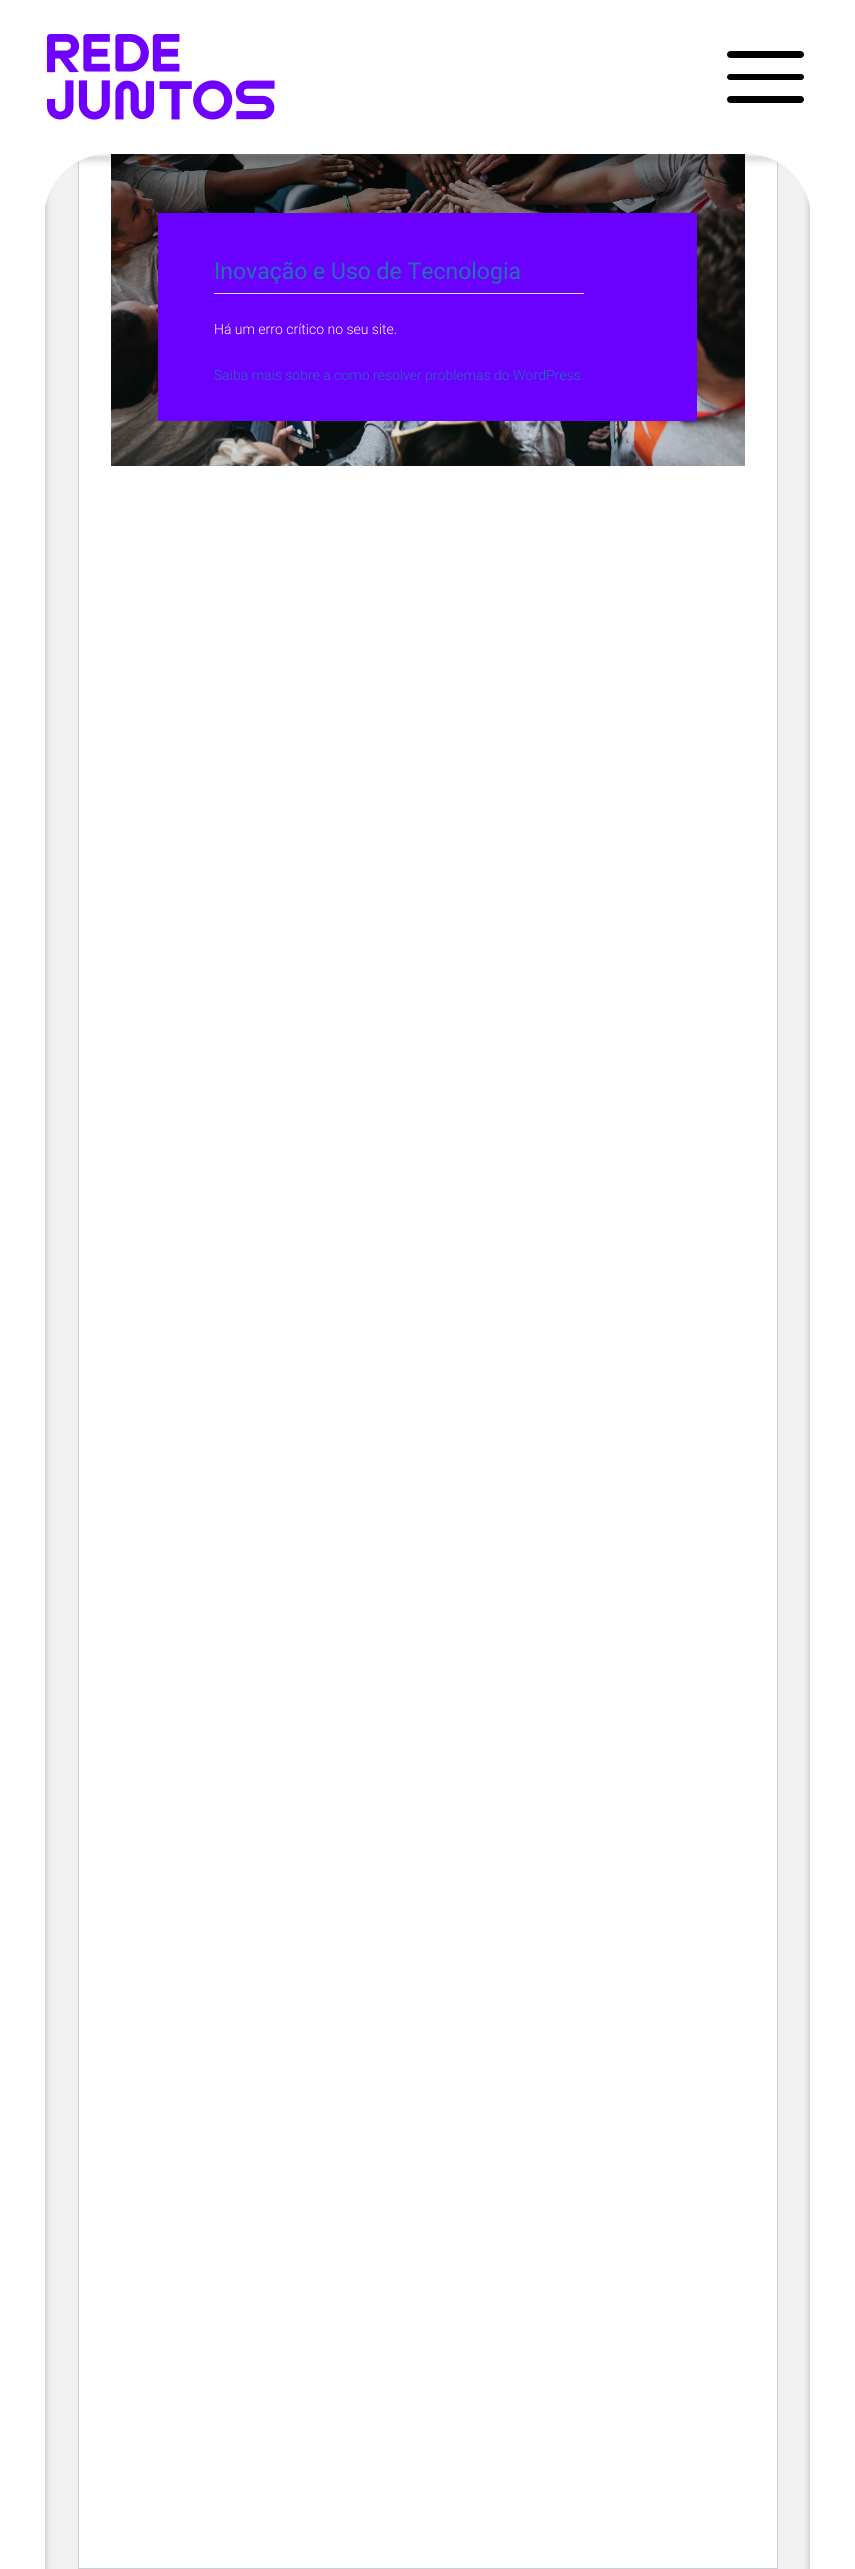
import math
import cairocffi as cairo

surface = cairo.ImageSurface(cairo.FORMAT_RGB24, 855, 2569)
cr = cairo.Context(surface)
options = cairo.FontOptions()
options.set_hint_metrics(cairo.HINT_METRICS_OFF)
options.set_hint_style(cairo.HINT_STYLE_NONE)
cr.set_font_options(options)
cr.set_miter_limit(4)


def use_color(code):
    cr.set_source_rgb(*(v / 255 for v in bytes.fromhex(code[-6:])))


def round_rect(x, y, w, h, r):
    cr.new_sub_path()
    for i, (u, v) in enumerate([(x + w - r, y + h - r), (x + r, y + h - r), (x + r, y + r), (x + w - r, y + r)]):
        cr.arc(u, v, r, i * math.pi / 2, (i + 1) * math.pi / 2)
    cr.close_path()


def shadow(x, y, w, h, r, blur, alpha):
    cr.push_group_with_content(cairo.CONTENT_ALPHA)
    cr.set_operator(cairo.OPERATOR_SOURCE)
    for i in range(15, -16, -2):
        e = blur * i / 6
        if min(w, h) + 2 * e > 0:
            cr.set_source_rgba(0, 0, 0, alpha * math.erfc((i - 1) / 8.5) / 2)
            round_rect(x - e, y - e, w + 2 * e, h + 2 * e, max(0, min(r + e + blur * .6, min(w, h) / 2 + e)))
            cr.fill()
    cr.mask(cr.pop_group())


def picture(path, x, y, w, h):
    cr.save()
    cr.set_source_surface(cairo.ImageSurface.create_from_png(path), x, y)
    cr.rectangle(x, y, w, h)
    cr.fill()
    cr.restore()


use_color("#f1f1f1")
cr.paint()
use_color("#ffffff")
cr.rectangle(79, 154, 698, 2414)
cr.fill()
cr.rectangle(78.5, 0.5, 699, 2568)
use_color("#ccd0d4")
cr.set_line_width(1)
cr.stroke()
use_color("#000000")
shadow(1, -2, 45, 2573, 0, 3, 0.2)
picture("img2.png", 111, 154, 634, 312)
shadow(42, 156, 769, 4, 0, 4, 0.2)
shadow(809, -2, 45, 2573, 0, 3, 0.2)
use_color("#ffffff")
cr.rectangle(45, 0, 765, 154)
cr.fill()
cr.new_path()
cr.move_to(108, 154)
cr.line_to(44, 154)
cr.line_to(44, 218)
cr.curve_to(44, 183, 73, 154, 108, 154)
cr.close_path()
cr.fill()
cr.rectangle(0, 0, 45, 2569)
cr.fill()
picture("img1.png", 47, 34, 228, 86)
use_color("#000000")
round_rect(727, 51, 77, 7, 3.5)
cr.fill()
round_rect(727, 74, 77, 6, 3)
cr.fill()
round_rect(727, 96, 77, 7, 3.5)
cr.fill()
use_color("#ffffff")
cr.new_path()
cr.move_to(747, 154)
cr.line_to(811, 154)
cr.line_to(811, 218)
cr.curve_to(811, 183, 782, 154, 747, 154)
cr.close_path()
cr.fill()
cr.rectangle(810, 0, 45, 2569)
cr.fill()
use_color("#6a00ff")
cr.rectangle(158, 213, 539, 208)
cr.fill()
use_color("#dadada")
cr.rectangle(214, 293, 370, 1)
cr.fill()
cr.select_font_face("Roboto")
cr.set_font_size(23)
use_color("#2271b1")
cr.move_to(214, 279)
cr.show_text("Inovação e Uso de Tecnologia")
cr.select_font_face("Roboto Light")
cr.set_font_size(14)
use_color("#ffffff")
cr.move_to(214, 334)
cr.show_text("Há um erro crítico no seu site.")
use_color("#2271b1")
cr.move_to(214, 380)
cr.show_text("Saiba mais sobre a como resolver problemas do WordPress.")
surface.write_to_png("result.png")
